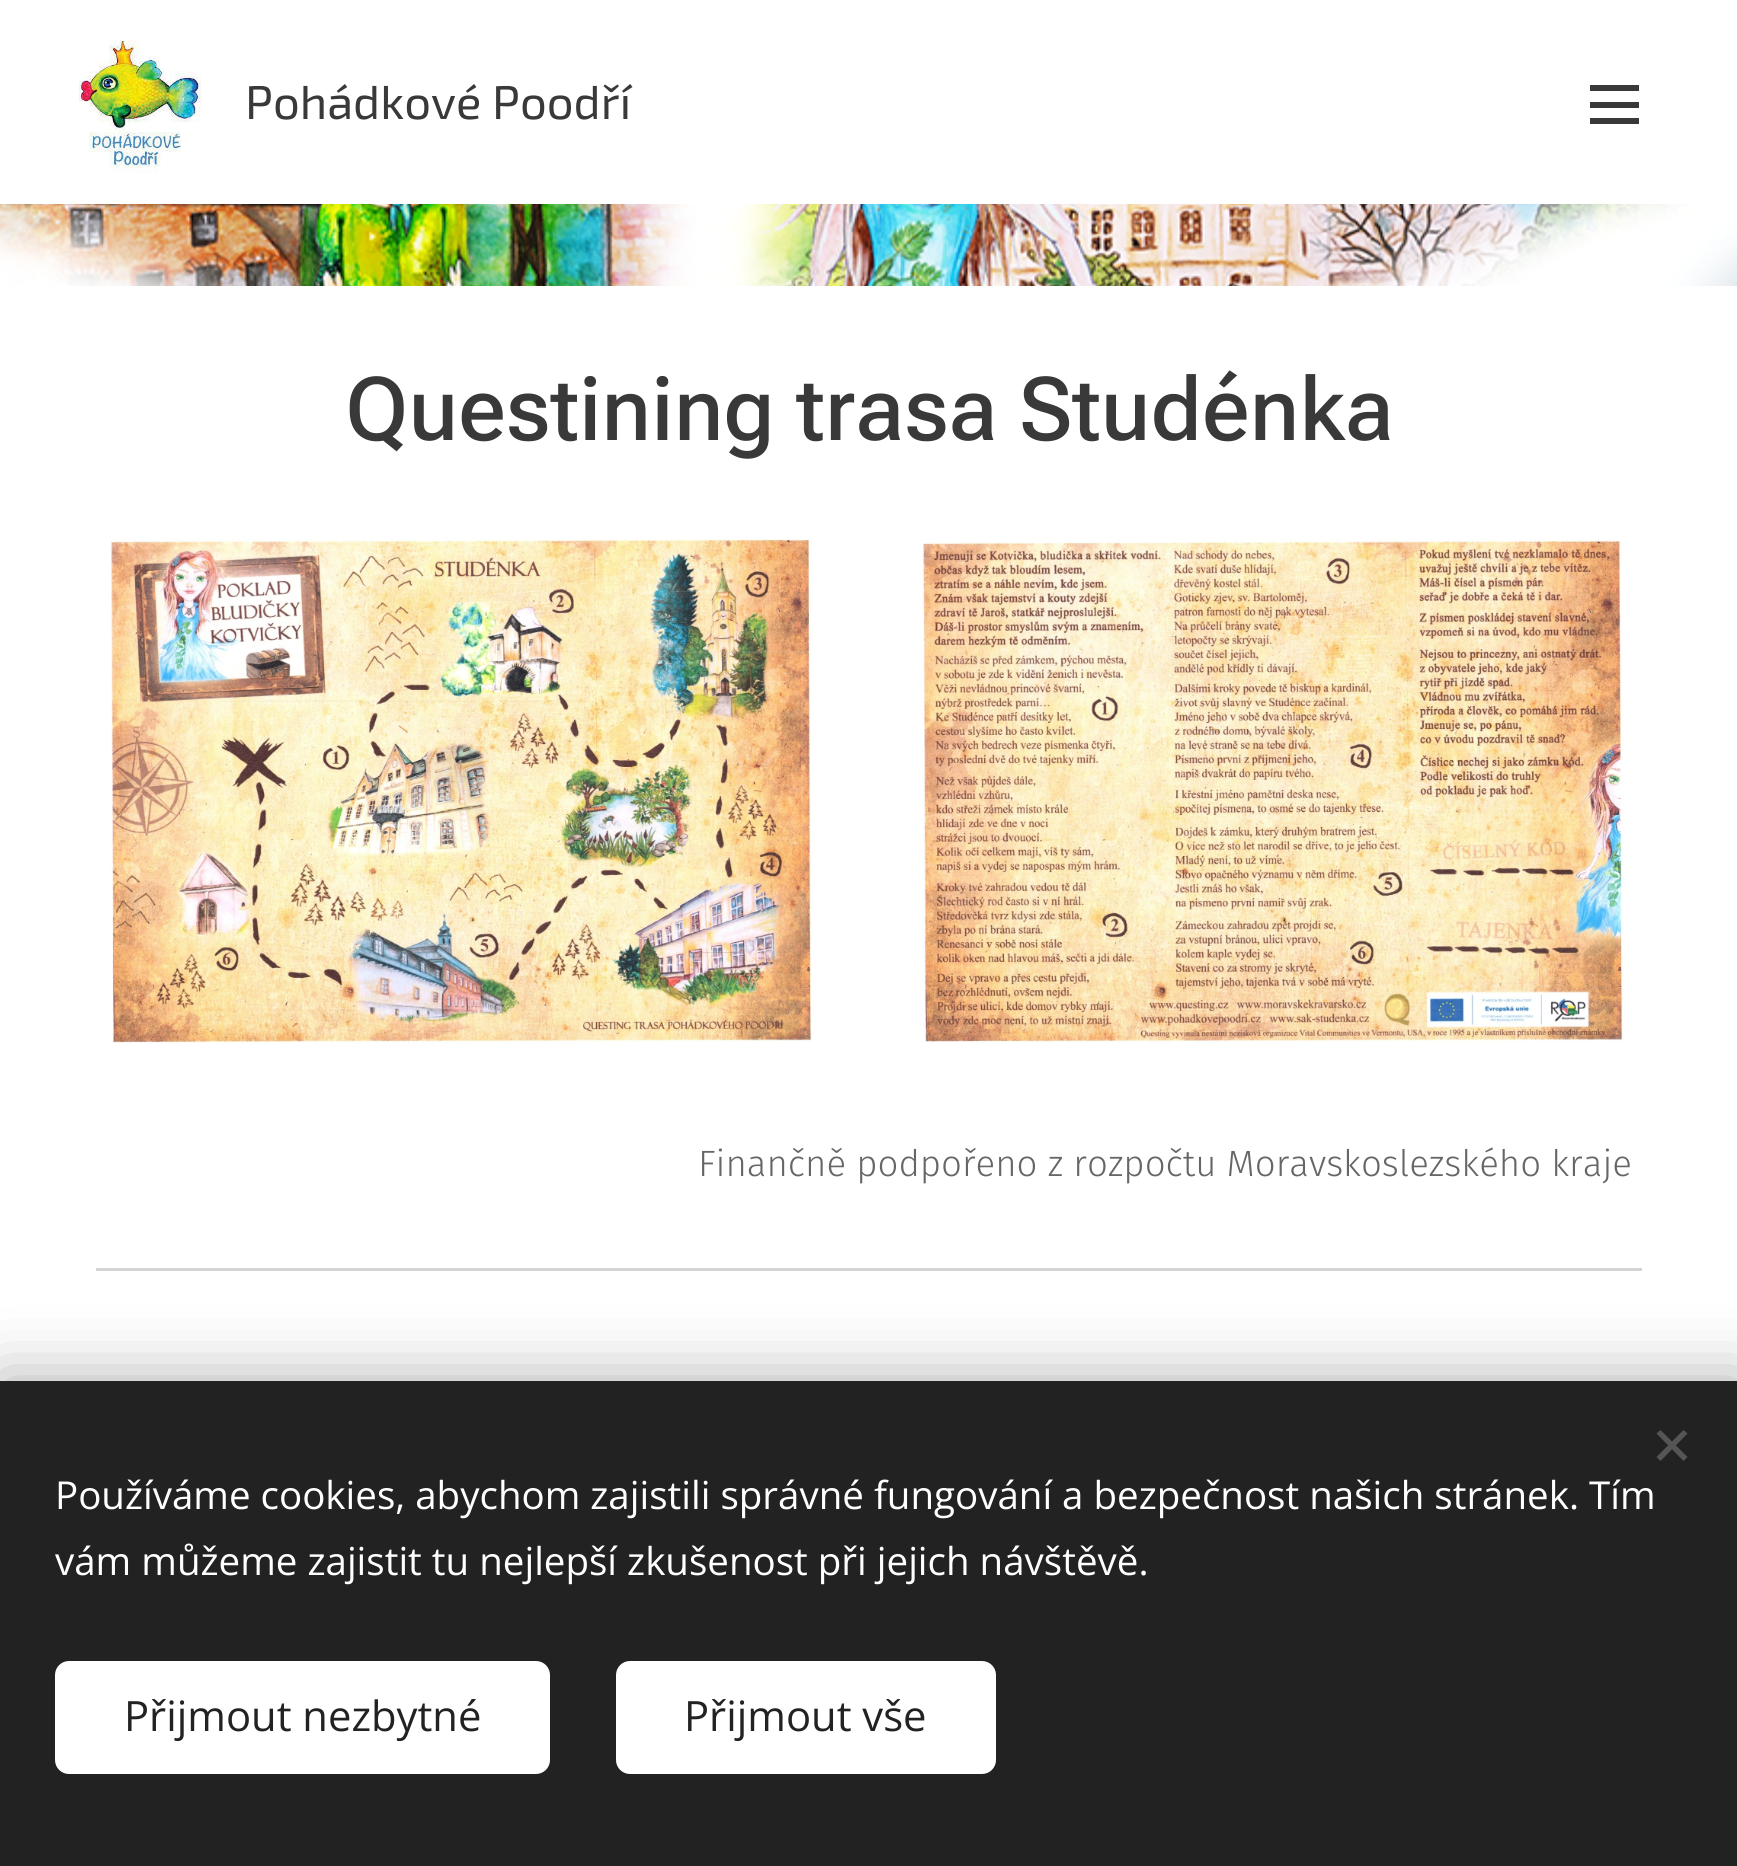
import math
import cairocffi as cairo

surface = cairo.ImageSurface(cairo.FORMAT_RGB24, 1737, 1866)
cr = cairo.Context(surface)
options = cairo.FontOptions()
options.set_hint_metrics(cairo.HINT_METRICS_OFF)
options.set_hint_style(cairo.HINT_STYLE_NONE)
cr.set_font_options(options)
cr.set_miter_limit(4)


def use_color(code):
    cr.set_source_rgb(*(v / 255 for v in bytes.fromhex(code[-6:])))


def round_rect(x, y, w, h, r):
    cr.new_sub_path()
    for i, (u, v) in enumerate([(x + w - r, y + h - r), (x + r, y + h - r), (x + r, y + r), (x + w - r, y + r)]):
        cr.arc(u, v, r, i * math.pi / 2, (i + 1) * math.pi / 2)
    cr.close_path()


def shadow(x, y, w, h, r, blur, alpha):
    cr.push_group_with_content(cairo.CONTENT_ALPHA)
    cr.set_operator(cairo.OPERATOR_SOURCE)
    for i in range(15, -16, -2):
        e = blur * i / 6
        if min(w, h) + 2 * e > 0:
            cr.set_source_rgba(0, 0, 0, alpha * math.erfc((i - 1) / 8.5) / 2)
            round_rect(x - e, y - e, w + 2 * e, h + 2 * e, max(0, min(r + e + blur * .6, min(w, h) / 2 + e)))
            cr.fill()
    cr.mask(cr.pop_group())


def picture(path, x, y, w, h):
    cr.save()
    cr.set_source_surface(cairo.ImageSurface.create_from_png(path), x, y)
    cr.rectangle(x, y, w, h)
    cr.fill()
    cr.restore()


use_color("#ffffff")
cr.paint()
picture("img1.png", 78, 40, 124, 133)
cr.select_font_face("Exo 2")
cr.set_font_size(47.25)
use_color("#393939")
cr.move_to(245, 119)
cr.show_text("Pohádkové Poodří")
cr.rectangle(1590, 102, 49, 6)
cr.fill()
cr.rectangle(1590, 85, 49, 6)
cr.fill()
cr.rectangle(1590, 118, 49, 6)
cr.fill()
picture("img2.png", 0, 204, 1737, 82)
cr.select_font_face("Roboto Flex Medium")
cr.set_font_size(88)
cr.move_to(345, 440)
cr.show_text("Questining trasa Studénka")
picture("img3.png", 110, 539, 702, 505)
picture("img4.png", 922, 539, 702, 504)
cr.select_font_face("Fira Sans Light")
cr.set_font_size(36.6)
use_color("#666666")
cr.move_to(698, 1176)
cr.show_text("Finančně podpořeno z rozpočtu Moravskoslezského kraje")
use_color("#d4d4d4")
cr.rectangle(96, 1268, 1546, 3)
cr.fill()
use_color("#000000")
shadow(0, 1381, 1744, 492, 0, 34.5, 0.33)
use_color("#222222")
cr.rectangle(0, 1381, 1737, 485)
cr.fill()
use_color("#555555")
cr.new_path()
cr.move_to(1656.5, 1457)
cr.line_to(1683.5, 1430)
cr.line_to(1687.5, 1433.5)
cr.line_to(1660.5, 1461)
cr.close_path()
cr.fill()
cr.new_path()
cr.move_to(1660.5, 1430)
cr.line_to(1687.5, 1457)
cr.line_to(1683.5, 1461)
cr.line_to(1656.5, 1433.5)
cr.close_path()
cr.fill()
cr.select_font_face("Open Sans")
cr.set_font_size(38.5)
use_color("#ffffff")
cr.move_to(55, 1509)
cr.show_text("Používáme cookies, abychom zajistili správné fungování a bezpečnost našich stránek. Tím")
cr.move_to(55, 1575)
cr.show_text("vám můžeme zajistit tu nejlepší zkušenost při jejich návštěvě.")
round_rect(55, 1661, 495, 113, 14)
cr.fill()
cr.set_font_size(41.75)
use_color("#222222")
cr.move_to(124, 1731)
cr.show_text("Přijmout nezbytné")
use_color("#ffffff")
round_rect(616, 1661, 380, 113, 14)
cr.fill()
use_color("#222222")
cr.move_to(684, 1731)
cr.show_text("Přijmout vše")
surface.write_to_png("result.png")
